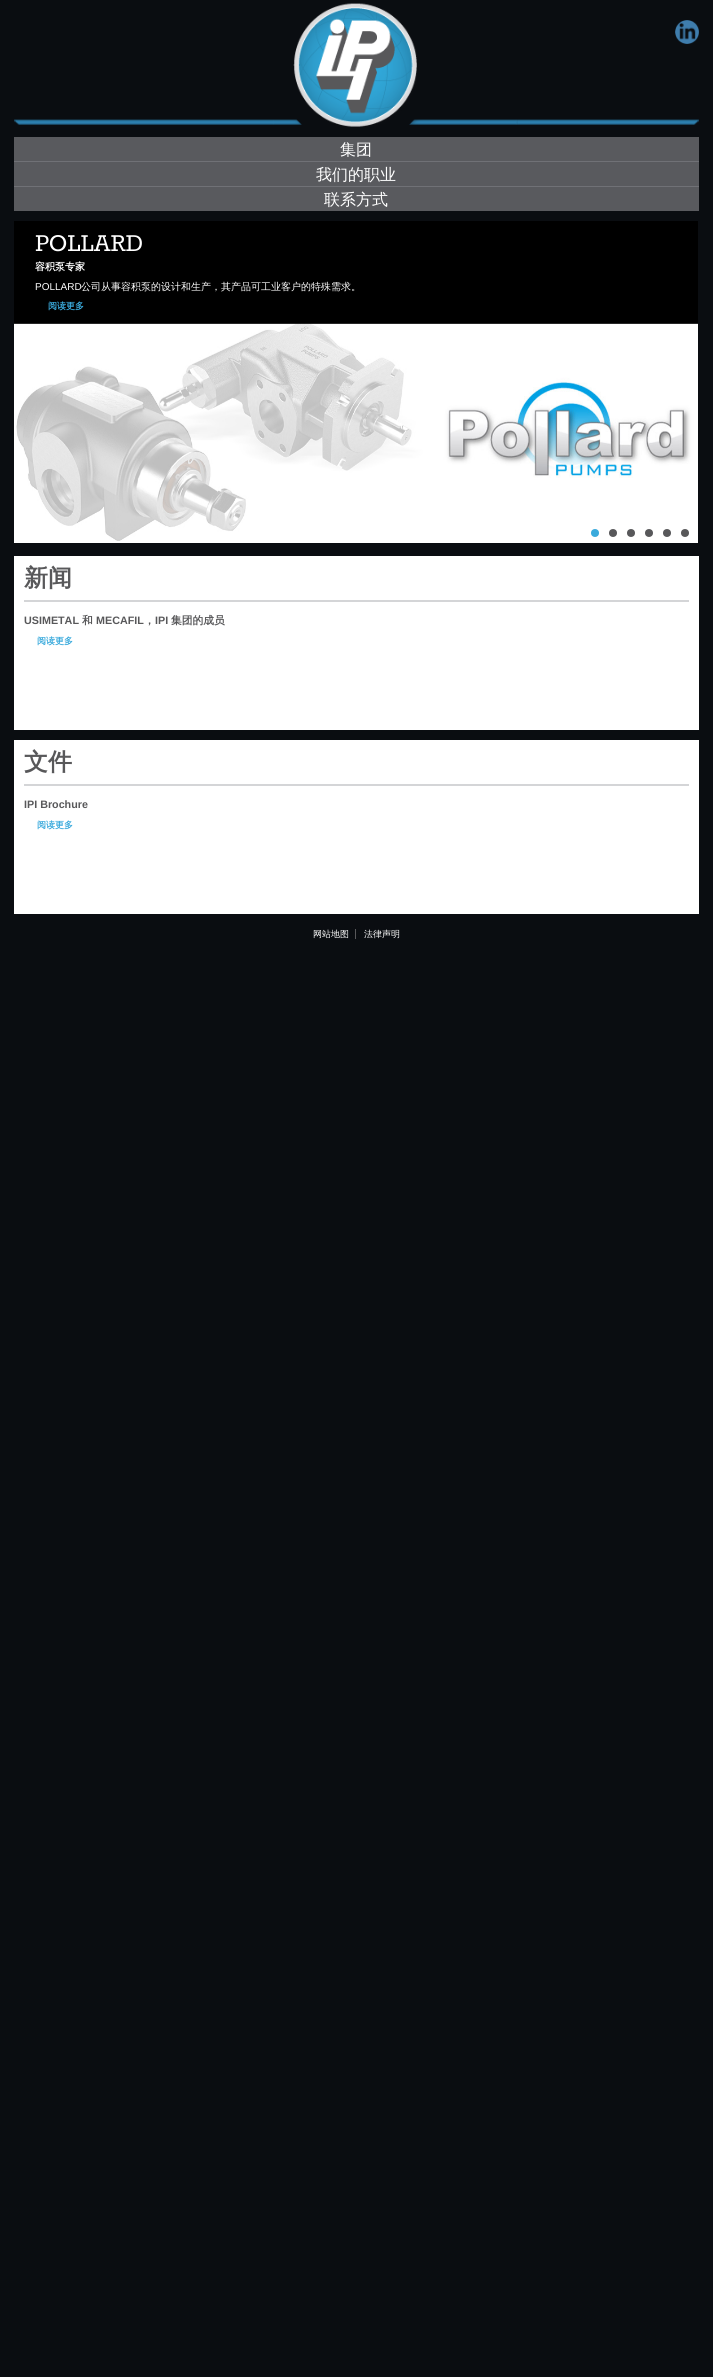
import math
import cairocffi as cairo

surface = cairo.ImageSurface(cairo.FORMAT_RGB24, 713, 2377)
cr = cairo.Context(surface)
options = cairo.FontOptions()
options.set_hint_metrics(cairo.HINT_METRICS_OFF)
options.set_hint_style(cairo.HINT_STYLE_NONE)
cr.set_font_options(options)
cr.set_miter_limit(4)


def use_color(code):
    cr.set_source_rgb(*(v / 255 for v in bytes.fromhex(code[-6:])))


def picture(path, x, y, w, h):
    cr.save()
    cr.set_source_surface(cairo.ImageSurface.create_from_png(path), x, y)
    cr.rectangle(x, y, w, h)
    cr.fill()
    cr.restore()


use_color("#0a0d11")
cr.paint()
picture("img1.png", 14, 3, 685, 124)
picture("img2.png", 675, 20, 24, 24)
use_color("#595a5e")
cr.rectangle(14, 137, 685, 74)
cr.fill()
use_color("#707176")
cr.rectangle(14, 161, 685, 1)
cr.fill()
cr.select_font_face("WenQuanYi Zen Hei Medium")
cr.set_font_size(16)
use_color("#ffffff")
cr.move_to(340, 155)
cr.show_text("集团")
use_color("#707176")
cr.rectangle(14, 186, 685, 1)
cr.fill()
use_color("#ffffff")
cr.move_to(316, 180)
cr.show_text("我们的职业")
cr.move_to(324, 205)
cr.show_text("联系方式")
cr.rectangle(14, 476, 684, 67)
cr.fill()
use_color("#000000")
cr.rectangle(14, 221, 684, 103)
cr.fill()
cr.select_font_face("Rokkitt")
cr.set_font_size(28)
use_color("#ffffff")
cr.move_to(35, 251)
cr.show_text("POLLARD")
cr.select_font_face("WenQuanYi Zen Hei", cairo.FONT_SLANT_NORMAL, cairo.FONT_WEIGHT_BOLD)
cr.set_font_size(10)
cr.move_to(35, 270)
cr.show_text("容积泵专家")
cr.select_font_face("Liberation Sans")
cr.move_to(35, 290)
cr.show_text("POLLARD")
cr.select_font_face("WenQuanYi Zen Hei Medium")
cr.move_to(81, 290)
cr.show_text("公司从事容积泵的设计和生产，其产品可工业客户的特殊需求。")
cr.select_font_face("WenQuanYi Zen Hei", cairo.FONT_SLANT_NORMAL, cairo.FONT_WEIGHT_BOLD)
cr.set_font_size(9)
use_color("#3aaadc")
cr.move_to(48, 309)
cr.show_text("阅读更多")
picture("img3.png", 14, 323, 684, 218)
picture("img4.png", 14, 323, 684, 153)
cr.arc(595, 533, 4, 0, 2 * math.pi)
cr.fill()
use_color("#58585a")
cr.arc(613, 533, 4, 0, 2 * math.pi)
cr.fill()
cr.arc(631, 533, 4, 0, 2 * math.pi)
cr.fill()
cr.arc(649, 533, 4, 0, 2 * math.pi)
cr.fill()
cr.arc(667, 533, 4, 0, 2 * math.pi)
cr.fill()
cr.arc(685, 533, 4, 0, 2 * math.pi)
cr.fill()
use_color("#ffffff")
cr.rectangle(14, 556, 685, 174)
cr.fill()
use_color("#d4d5d7")
cr.rectangle(24, 600, 665, 2)
cr.fill()
cr.set_font_size(24)
use_color("#58585a")
cr.move_to(24, 586)
cr.show_text("新闻")
cr.select_font_face("Liberation Sans", cairo.FONT_SLANT_NORMAL, cairo.FONT_WEIGHT_BOLD)
cr.set_font_size(10.75)
cr.move_to(24, 624)
cr.show_text("USIMETAL")
cr.select_font_face("WenQuanYi Zen Hei", cairo.FONT_SLANT_NORMAL, cairo.FONT_WEIGHT_BOLD)
cr.move_to(82, 624)
cr.show_text("和")
cr.select_font_face("Liberation Sans", cairo.FONT_SLANT_NORMAL, cairo.FONT_WEIGHT_BOLD)
cr.move_to(96, 624)
cr.show_text("MECAFIL")
cr.select_font_face("WenQuanYi Zen Hei", cairo.FONT_SLANT_NORMAL, cairo.FONT_WEIGHT_BOLD)
cr.move_to(144, 624)
cr.show_text("，")
cr.select_font_face("Liberation Sans", cairo.FONT_SLANT_NORMAL, cairo.FONT_WEIGHT_BOLD)
cr.move_to(155, 624)
cr.show_text("IPI")
cr.select_font_face("WenQuanYi Zen Hei", cairo.FONT_SLANT_NORMAL, cairo.FONT_WEIGHT_BOLD)
cr.move_to(171, 624)
cr.show_text("集团的成员")
cr.set_font_size(9)
use_color("#3aaadc")
cr.move_to(37, 644)
cr.show_text("阅读更多")
use_color("#ffffff")
cr.rectangle(14, 740, 685, 174)
cr.fill()
use_color("#d4d5d7")
cr.rectangle(24, 784, 665, 2)
cr.fill()
cr.set_font_size(24)
use_color("#58585a")
cr.move_to(24, 770)
cr.show_text("文件")
cr.select_font_face("Liberation Sans", cairo.FONT_SLANT_NORMAL, cairo.FONT_WEIGHT_BOLD)
cr.set_font_size(10.75)
cr.move_to(24, 808)
cr.show_text("IPI Brochure")
cr.select_font_face("WenQuanYi Zen Hei", cairo.FONT_SLANT_NORMAL, cairo.FONT_WEIGHT_BOLD)
cr.set_font_size(9)
use_color("#3aaadc")
cr.move_to(37, 828)
cr.show_text("阅读更多")
cr.select_font_face("WenQuanYi Zen Hei Medium")
use_color("#ffffff")
cr.move_to(313, 937)
cr.show_text("网站地图")
use_color("#58585a")
cr.rectangle(355, 929, 1, 10)
cr.fill()
use_color("#ffffff")
cr.move_to(364, 937)
cr.show_text("法律声明")
surface.write_to_png("result.png")
